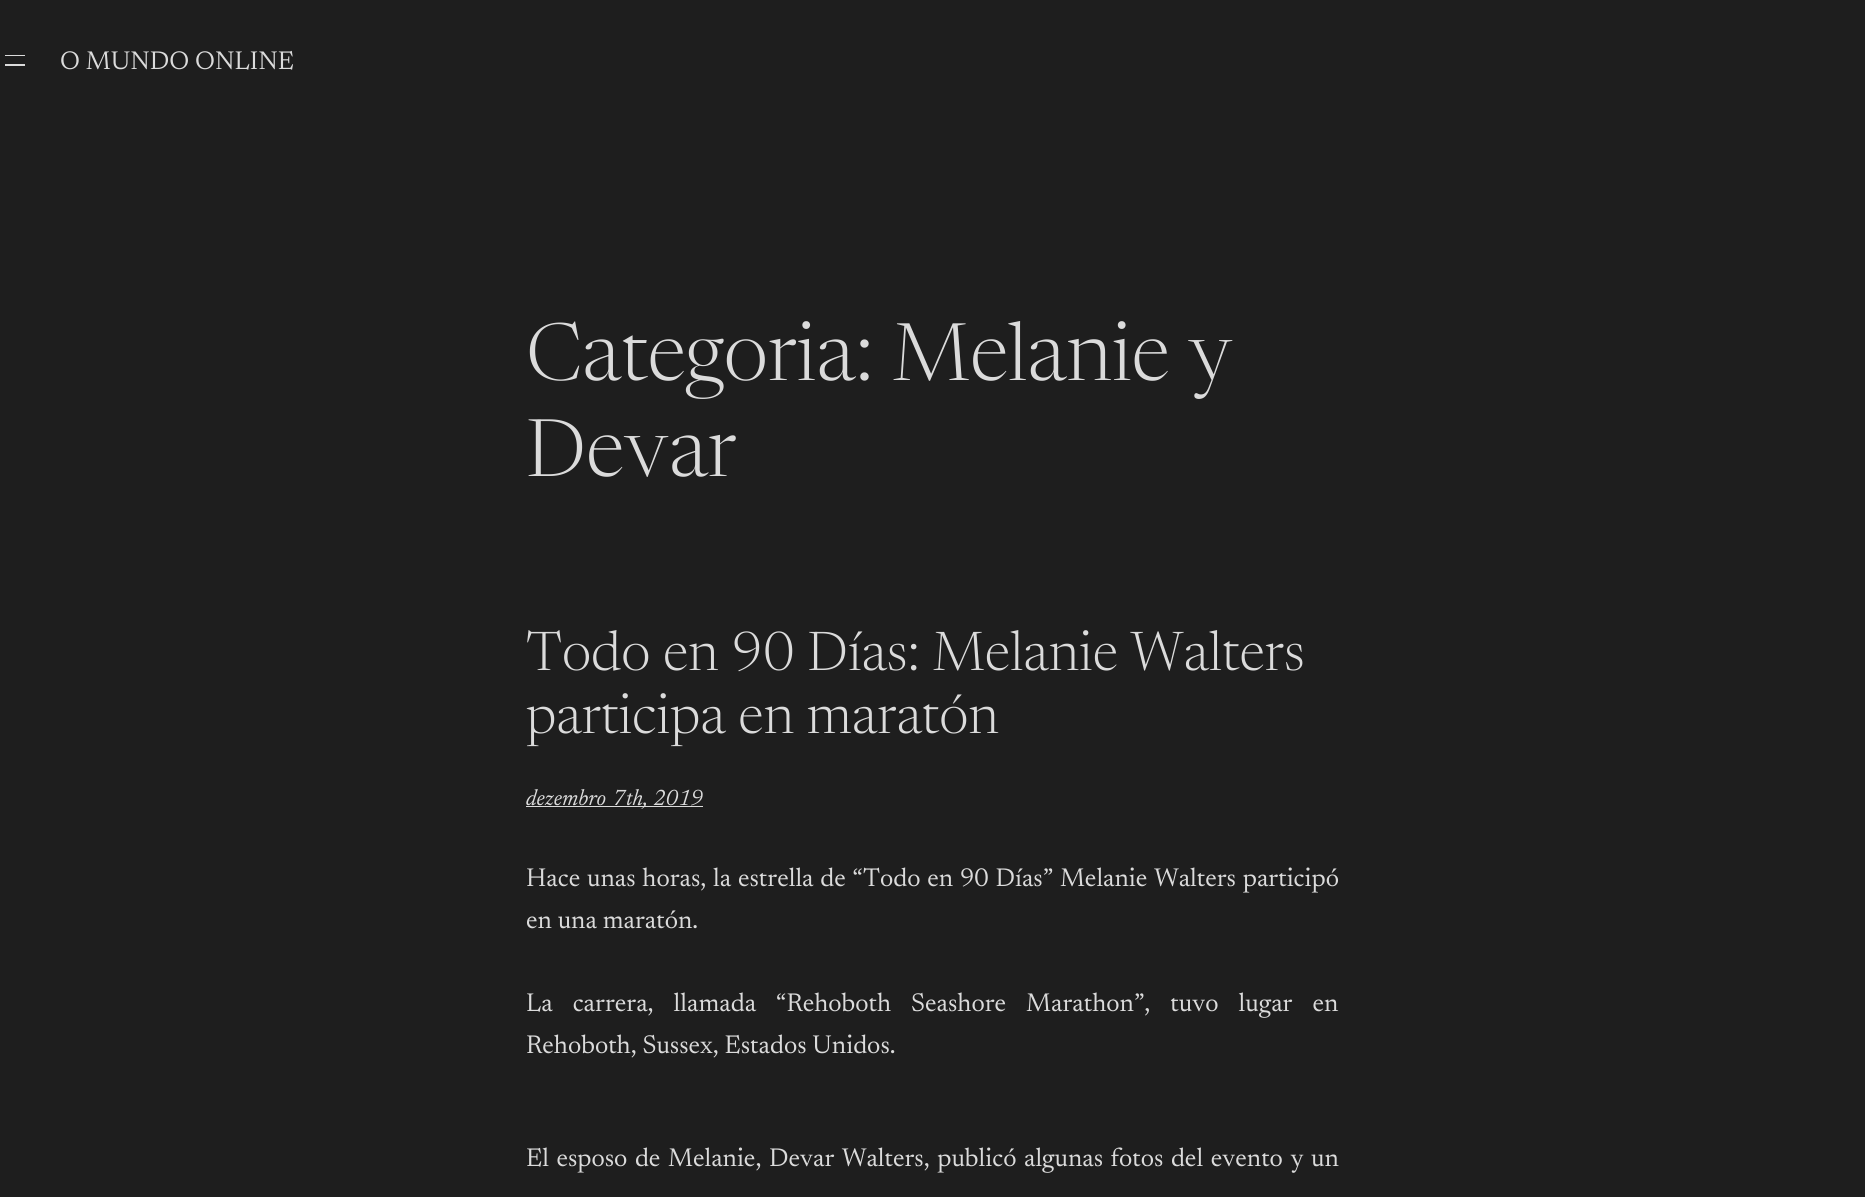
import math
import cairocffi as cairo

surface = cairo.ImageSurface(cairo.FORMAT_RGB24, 1865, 1197)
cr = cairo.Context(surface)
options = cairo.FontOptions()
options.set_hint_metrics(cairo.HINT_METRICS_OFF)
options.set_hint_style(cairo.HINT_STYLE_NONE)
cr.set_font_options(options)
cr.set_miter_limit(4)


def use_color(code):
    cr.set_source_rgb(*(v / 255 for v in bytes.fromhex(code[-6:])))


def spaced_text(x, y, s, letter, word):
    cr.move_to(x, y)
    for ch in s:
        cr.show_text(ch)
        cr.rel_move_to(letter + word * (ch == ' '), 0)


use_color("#1e1e1e")
cr.paint()
use_color("#dbdbdb")
cr.rectangle(5, 55, 20, 1)
cr.fill()
cr.rectangle(5, 64, 20, 2)
cr.fill()
cr.select_font_face("Newsreader")
cr.set_font_size(26)
cr.move_to(60, 69)
cr.show_text("O MUNDO ONLINE")
cr.select_font_face("Newsreader Light")
cr.set_font_size(80)
cr.move_to(526, 380)
cr.show_text("Categoria: Melanie y")
cr.move_to(526, 476)
cr.show_text("Devar")
cr.select_font_face("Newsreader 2 Light")
cr.set_font_size(55)
cr.move_to(526, 670)
cr.show_text("Todo en 90 Días: Melanie Walters")
cr.move_to(526, 733)
cr.show_text("participa en maratón")
cr.rectangle(526, 806, 177, 1)
cr.fill()
cr.select_font_face("Newsreader", cairo.FONT_SLANT_ITALIC)
cr.set_font_size(22.5)
cr.move_to(526, 805)
cr.show_text("dezembro 7th, 2019")
cr.select_font_face("Newsreader")
cr.set_font_size(26)
spaced_text(526, 886, "Hace unas horas, la estrella de “Todo en 90 Días” Melanie Walters participó", 0, 1)
cr.move_to(526, 928)
cr.show_text("en una maratón.")
spaced_text(526, 1011, "La carrera, llamada “Rehoboth Seashore Marathon”, tuvo lugar en", 0, 14.25)
cr.move_to(526, 1053)
cr.show_text("Rehoboth, Sussex, Estados Unidos.")
spaced_text(526, 1166, "El esposo de Melanie, Devar Walters, publicó algunas fotos del evento y un", 0, 1.75)
surface.write_to_png("result.png")
